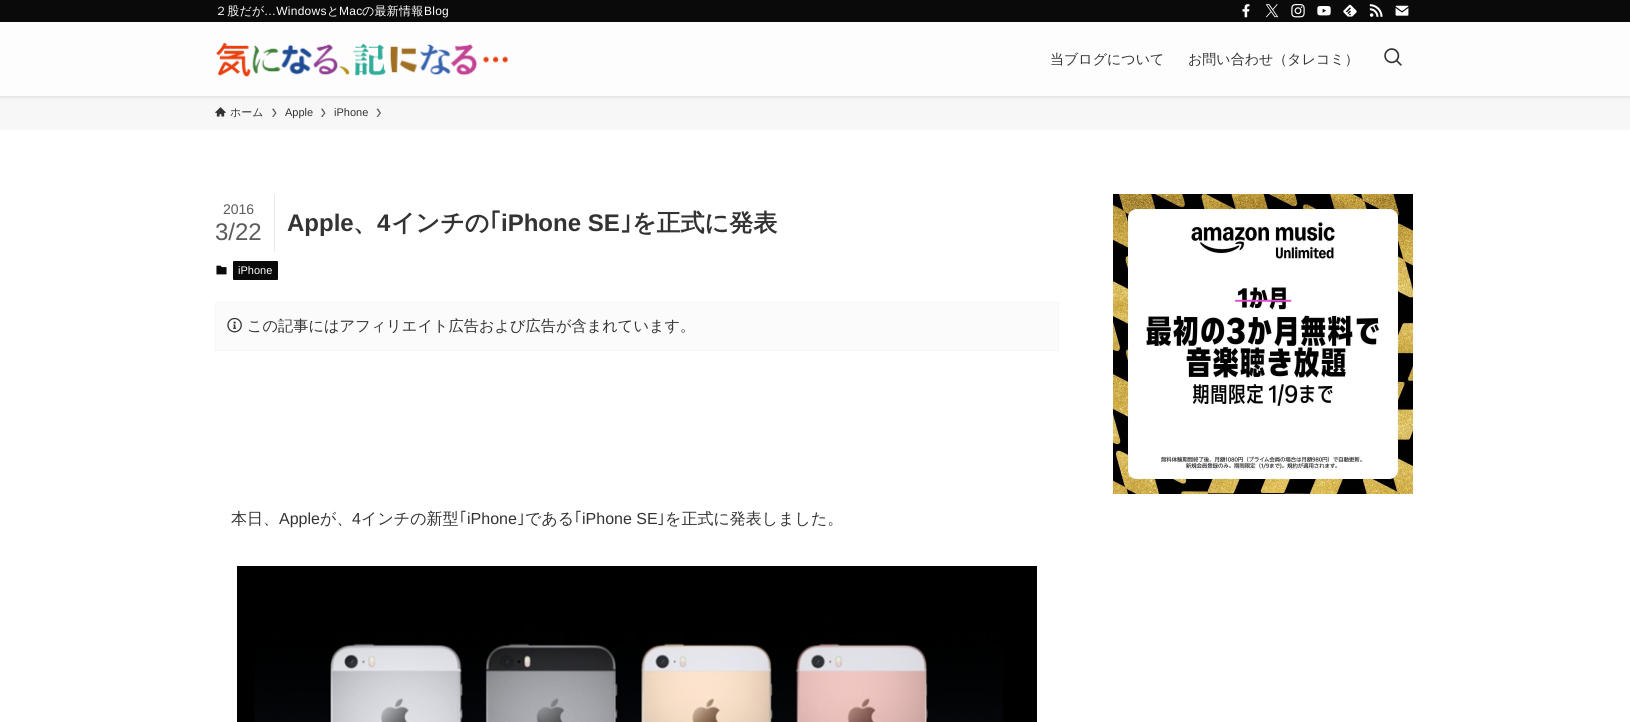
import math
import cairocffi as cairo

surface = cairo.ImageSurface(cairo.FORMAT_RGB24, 1630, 722)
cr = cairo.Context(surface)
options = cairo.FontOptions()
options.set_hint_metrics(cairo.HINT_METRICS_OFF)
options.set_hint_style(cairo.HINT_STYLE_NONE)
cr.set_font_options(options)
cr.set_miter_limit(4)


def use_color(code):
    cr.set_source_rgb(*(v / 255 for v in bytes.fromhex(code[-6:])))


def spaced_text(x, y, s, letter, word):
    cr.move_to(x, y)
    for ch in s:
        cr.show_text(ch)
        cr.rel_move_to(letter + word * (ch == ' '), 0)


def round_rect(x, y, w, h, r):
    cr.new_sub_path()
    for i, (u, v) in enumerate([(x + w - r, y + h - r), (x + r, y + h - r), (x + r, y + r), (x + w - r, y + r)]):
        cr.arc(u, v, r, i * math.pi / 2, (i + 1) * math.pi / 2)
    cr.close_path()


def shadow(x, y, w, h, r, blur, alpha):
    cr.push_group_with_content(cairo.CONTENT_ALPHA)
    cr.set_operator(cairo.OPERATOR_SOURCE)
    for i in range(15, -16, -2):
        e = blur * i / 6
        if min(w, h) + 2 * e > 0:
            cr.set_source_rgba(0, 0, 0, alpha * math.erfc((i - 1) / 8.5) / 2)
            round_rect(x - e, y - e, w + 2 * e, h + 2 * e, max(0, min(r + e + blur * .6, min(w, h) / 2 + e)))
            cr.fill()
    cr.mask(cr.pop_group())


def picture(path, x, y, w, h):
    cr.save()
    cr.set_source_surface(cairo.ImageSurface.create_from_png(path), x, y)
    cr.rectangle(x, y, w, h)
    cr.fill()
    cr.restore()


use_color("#ffffff")
cr.paint()
use_color("#f7f7f7")
cr.rectangle(0, 96, 1630, 34)
cr.fill()
use_color("#000000")
shadow(0, 1, 1630, 96, 0, 2, 0.12)
use_color("#fdfdfd")
cr.rectangle(0, 22, 1630, 74)
cr.fill()
use_color("#0a0a0a")
cr.rectangle(0, 0, 1630, 22)
cr.fill()
cr.select_font_face("WenQuanYi Zen Hei Medium")
cr.set_font_size(12)
use_color("#ffffff")
spaced_text(215, 15, "２股だが", 0.25, 0)
cr.select_font_face("Liberation Sans")
spaced_text(264, 15, "…Windows", 0.25, 0)
cr.select_font_face("WenQuanYi Zen Hei Medium")
spaced_text(327, 15, "と", 0.25, 0)
cr.select_font_face("Liberation Sans")
spaced_text(339, 15, "Mac", 0.25, 0)
cr.select_font_face("WenQuanYi Zen Hei Medium")
spaced_text(362, 15, "の最新情報", 0.25, 0)
cr.select_font_face("Liberation Sans")
spaced_text(424, 15, "Blog", 0.25, 0)
picture("img1.png", 1242, 4, 8, 14)
picture("img2.png", 1265, 4, 14, 14)
picture("img3.png", 1291, 4, 14, 14)
picture("img4.png", 1317, 6, 14, 10)
picture("img5.png", 1343, 4, 14, 13)
picture("img6.png", 1369, 4, 14, 13)
picture("img7.png", 1395, 5, 14, 11)
picture("img8.png", 216, 42, 293, 35)
cr.select_font_face("WenQuanYi Zen Hei Medium")
cr.set_font_size(14)
use_color("#333333")
cr.move_to(1050, 64)
cr.show_text("当ブログについて")
cr.move_to(1188, 64)
cr.show_text("お問い合わせ（タレコミ）")
picture("img9.png", 1384, 48, 18, 18)
picture("img10.png", 215, 107, 11, 10)
cr.set_font_size(11)
cr.move_to(230, 116)
cr.show_text("ホーム")
use_color("#5a5a5a")
cr.new_path()
cr.move_to(273.5, 108.5)
cr.line_to(272, 109)
cr.line_to(275, 113)
cr.line_to(272, 117)
cr.line_to(273.5, 117)
cr.line_to(276.5, 113)
cr.close_path()
cr.fill()
cr.select_font_face("Liberation Sans")
use_color("#333333")
cr.move_to(285, 116)
cr.show_text("Apple")
use_color("#5a5a5a")
cr.new_path()
cr.move_to(322.5, 108.5)
cr.line_to(321, 109)
cr.line_to(324, 113)
cr.line_to(321, 117)
cr.line_to(322.5, 117)
cr.line_to(325.5, 113)
cr.close_path()
cr.fill()
use_color("#333333")
cr.move_to(334, 116)
cr.show_text("iPhone")
use_color("#5a5a5a")
cr.new_path()
cr.move_to(378, 108.5)
cr.line_to(376.5, 109)
cr.line_to(379.5, 113)
cr.line_to(376.5, 117)
cr.line_to(378, 117)
cr.line_to(381, 113)
cr.close_path()
cr.fill()
use_color("#e9e9e9")
cr.rectangle(274, 194, 1, 58)
cr.fill()
cr.set_font_size(14)
use_color("#5c5c5c")
cr.move_to(223, 214)
cr.show_text("2016")
cr.set_font_size(24)
cr.move_to(215, 240)
cr.show_text("3/22")
cr.select_font_face("Liberation Sans", cairo.FONT_SLANT_NORMAL, cairo.FONT_WEIGHT_BOLD)
use_color("#333333")
cr.move_to(287, 231)
cr.show_text("Apple")
cr.select_font_face("WenQuanYi Zen Hei", cairo.FONT_SLANT_NORMAL, cairo.FONT_WEIGHT_BOLD)
cr.move_to(353, 231)
cr.show_text("、")
cr.select_font_face("Liberation Sans", cairo.FONT_SLANT_NORMAL, cairo.FONT_WEIGHT_BOLD)
cr.move_to(377, 231)
cr.show_text("4")
cr.select_font_face("WenQuanYi Zen Hei", cairo.FONT_SLANT_NORMAL, cairo.FONT_WEIGHT_BOLD)
cr.move_to(391, 231)
cr.show_text("インチの")
cr.select_font_face("IPAPGothic", cairo.FONT_SLANT_NORMAL, cairo.FONT_WEIGHT_BOLD)
cr.move_to(489, 231)
cr.show_text("｢")
cr.select_font_face("Liberation Sans", cairo.FONT_SLANT_NORMAL, cairo.FONT_WEIGHT_BOLD)
cr.move_to(501, 231)
cr.show_text("iPhone SE")
cr.select_font_face("IPAPGothic", cairo.FONT_SLANT_NORMAL, cairo.FONT_WEIGHT_BOLD)
cr.move_to(620, 231)
cr.show_text("｣")
cr.select_font_face("WenQuanYi Zen Hei", cairo.FONT_SLANT_NORMAL, cairo.FONT_WEIGHT_BOLD)
cr.move_to(632, 231)
cr.show_text("を正式に発表")
picture("img11.png", 216, 265, 11, 10)
use_color("#0a0a0a")
round_rect(233, 261, 45, 19, 1)
cr.fill()
cr.select_font_face("Liberation Sans")
cr.set_font_size(11)
use_color("#ffffff")
cr.move_to(238, 274)
cr.show_text("iPhone")
use_color("#fbfbfb")
round_rect(215.5, 302.5, 843, 48, 0.5)
cr.fill_preserve()
use_color("#f7f7f7")
cr.set_line_width(1)
cr.stroke()
picture("img12.png", 227, 317, 15, 16)
cr.select_font_face("WenQuanYi Zen Hei Medium")
cr.set_font_size(15.2)
use_color("#333333")
cr.move_to(247, 331)
cr.show_text("この記事にはアフィリエイト広告および広告が含まれています。")
cr.set_font_size(16)
cr.move_to(231, 524)
cr.show_text("本日、")
cr.select_font_face("Liberation Sans")
cr.move_to(279, 524)
cr.show_text("Apple")
cr.select_font_face("WenQuanYi Zen Hei Medium")
cr.move_to(320, 524)
cr.show_text("が、")
cr.select_font_face("Liberation Sans")
cr.move_to(352, 524)
cr.show_text("4")
cr.select_font_face("WenQuanYi Zen Hei Medium")
cr.move_to(361, 524)
cr.show_text("インチの新型")
cr.select_font_face("IPAPGothic")
cr.move_to(459, 524)
cr.show_text("｢")
cr.select_font_face("Liberation Sans")
cr.move_to(467, 524)
cr.show_text("iPhone")
cr.select_font_face("IPAPGothic")
cr.move_to(517, 524)
cr.show_text("｣")
cr.select_font_face("WenQuanYi Zen Hei Medium")
cr.move_to(525, 524)
cr.show_text("である")
cr.select_font_face("IPAPGothic")
cr.move_to(574, 524)
cr.show_text("｢")
cr.select_font_face("Liberation Sans")
cr.move_to(582, 524)
cr.show_text("iPhone SE")
cr.select_font_face("IPAPGothic")
cr.move_to(657, 524)
cr.show_text("｣")
cr.select_font_face("WenQuanYi Zen Hei Medium")
cr.move_to(665, 524)
cr.show_text("を正式に発表しました。")
picture("img13.png", 237, 566, 800, 156)
picture("img14.png", 1113, 194, 300, 300)
surface.write_to_png("result.png")
